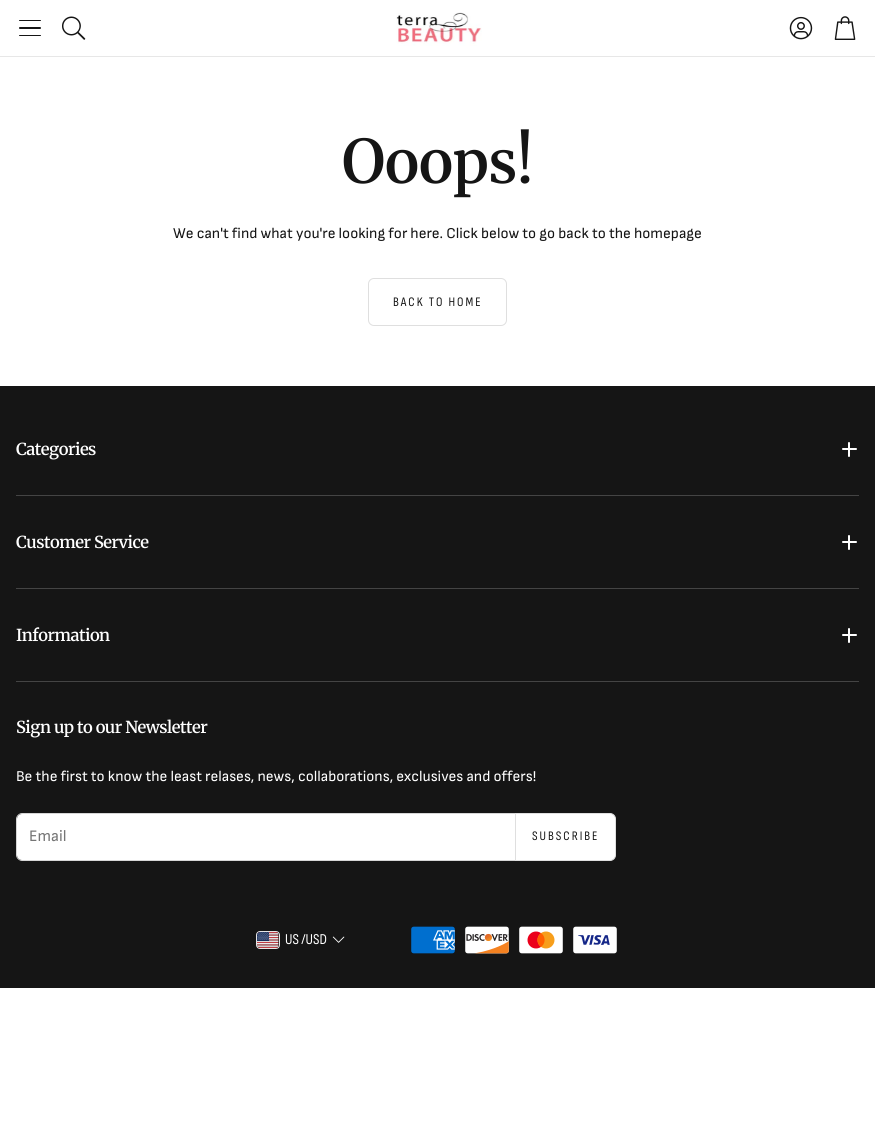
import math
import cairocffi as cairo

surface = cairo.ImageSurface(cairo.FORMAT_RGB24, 875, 1145)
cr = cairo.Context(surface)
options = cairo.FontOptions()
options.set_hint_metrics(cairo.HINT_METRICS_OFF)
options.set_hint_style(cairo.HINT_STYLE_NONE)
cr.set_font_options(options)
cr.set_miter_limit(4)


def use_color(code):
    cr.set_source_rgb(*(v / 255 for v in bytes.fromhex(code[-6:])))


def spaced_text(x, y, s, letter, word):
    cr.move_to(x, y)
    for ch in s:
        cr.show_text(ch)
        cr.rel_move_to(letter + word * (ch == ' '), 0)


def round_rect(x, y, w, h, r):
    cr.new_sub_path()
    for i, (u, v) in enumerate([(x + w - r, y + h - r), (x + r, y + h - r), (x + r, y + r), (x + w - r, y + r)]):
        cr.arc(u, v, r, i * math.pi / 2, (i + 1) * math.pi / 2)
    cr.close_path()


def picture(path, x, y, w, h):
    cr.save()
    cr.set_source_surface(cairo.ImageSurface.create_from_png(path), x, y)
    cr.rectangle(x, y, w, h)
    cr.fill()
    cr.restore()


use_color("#ffffff")
cr.paint()
use_color("#e7e7e7")
cr.rectangle(0, 56, 875, 1)
cr.fill()
use_color("#151515")
round_rect(19, 20, 22, 1, 0.5)
cr.fill()
round_rect(19, 27, 22, 2, 1)
cr.fill()
round_rect(19, 35, 22, 1, 0.5)
cr.fill()
picture("img1.png", 62, 16, 24, 24)
picture("img2.png", 396, 12, 86, 34)
picture("img3.png", 789, 16, 24, 24)
picture("img4.png", 834, 16, 22, 24)
cr.select_font_face("Merriweather SemiBold")
cr.set_font_size(60)
cr.move_to(342, 183)
cr.show_text("Ooops!")
cr.select_font_face("Sofia Sans")
cr.set_font_size(15)
cr.move_to(173, 238)
cr.show_text("We can't find what you're looking for here. Click below to go back to the homepage")
round_rect(368.5, 278.5, 138, 47, 5.5)
use_color("#dfdfdf")
cr.set_line_width(1)
cr.stroke()
cr.select_font_face("Sofia Sans Condensed")
cr.set_font_size(13)
use_color("#151515")
spaced_text(393, 306, "BACK TO HOME", 2, 0)
cr.rectangle(0, 386, 875, 602)
cr.fill()
cr.select_font_face("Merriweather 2 SemiBold")
cr.set_font_size(16.5)
use_color("#ffffff")
spaced_text(16, 455, "Categories", -0.5, 0)
round_rect(842, 448, 15, 2, 1)
cr.fill()
round_rect(848, 442, 2, 15, 1)
cr.fill()
use_color("#444444")
cr.rectangle(16, 495, 843, 1)
cr.fill()
use_color("#ffffff")
spaced_text(16, 548, "Customer Service", -0.5, 0)
round_rect(842, 541, 15, 2, 1)
cr.fill()
round_rect(848, 535, 2, 15, 1)
cr.fill()
use_color("#444444")
cr.rectangle(16, 588, 843, 1)
cr.fill()
use_color("#ffffff")
spaced_text(16, 641, "Information", -0.5, 0)
round_rect(842, 634, 15, 2, 1)
cr.fill()
round_rect(848, 628, 2, 15, 1)
cr.fill()
use_color("#444444")
cr.rectangle(16, 681, 843, 1)
cr.fill()
use_color("#ffffff")
spaced_text(16, 733, "Sign up to our Newsletter", -0.5, 0)
cr.select_font_face("Sofia Sans")
cr.set_font_size(15)
cr.move_to(16, 781)
cr.show_text("Be the first to know the least relases, news, collaborations, exclusives and offers!")
cr.new_path()
cr.move_to(22, 814)
cr.line_to(515, 814)
cr.line_to(515, 860)
cr.line_to(22, 860)
cr.curve_to(19, 860, 17, 858, 17, 855)
cr.line_to(17, 819)
cr.curve_to(17, 816, 19, 814, 22, 814)
cr.close_path()
cr.fill()
use_color("#d6d6d6")
cr.set_fill_rule(cairo.FILL_RULE_EVEN_ODD)
cr.new_path()
cr.move_to(22, 813)
cr.line_to(515, 813)
cr.line_to(515, 861)
cr.line_to(22, 861)
cr.curve_to(19, 861, 16, 858, 16, 855)
cr.line_to(16, 819)
cr.curve_to(16, 816, 19, 813, 22, 813)
cr.close_path()
cr.move_to(22, 814)
cr.line_to(515, 814)
cr.line_to(515, 860)
cr.line_to(22, 860)
cr.curve_to(19, 860, 17, 858, 17, 855)
cr.line_to(17, 819)
cr.curve_to(17, 816, 19, 814, 22, 814)
cr.close_path()
cr.fill()
cr.set_font_size(16)
use_color("#757575")
cr.move_to(29, 841)
cr.show_text("Email")
use_color("#ffffff")
cr.new_path()
cr.move_to(515.5, 813.5)
cr.line_to(610, 813.5)
cr.curve_to(613, 813.5, 615.5, 816, 615.5, 819)
cr.line_to(615.5, 855)
cr.curve_to(615.5, 858, 613, 860.5, 610, 860.5)
cr.line_to(515.5, 860.5)
cr.close_path()
cr.fill_preserve()
use_color("#dfdfdf")
cr.stroke()
cr.select_font_face("Sofia Sans Condensed")
cr.set_font_size(13)
use_color("#151515")
spaced_text(532, 840, "SUBSCRIBE", 2, 0)
round_rect(256.5, 931.5, 23, 17, 3.5)
use_color("#e7e7e7")
cr.stroke()
picture("img5.png", 257, 932, 22, 16)
cr.set_font_size(15)
use_color("#ffffff")
cr.move_to(285, 944)
cr.show_text("US /USD")
picture("img6.png", 332, 936, 13, 7)
picture("img7.png", 411, 926, 44, 28)
picture("img8.png", 465, 926, 44, 28)
picture("img9.png", 519, 926, 44, 28)
picture("img10.png", 573, 926, 44, 28)
surface.write_to_png("result.png")
